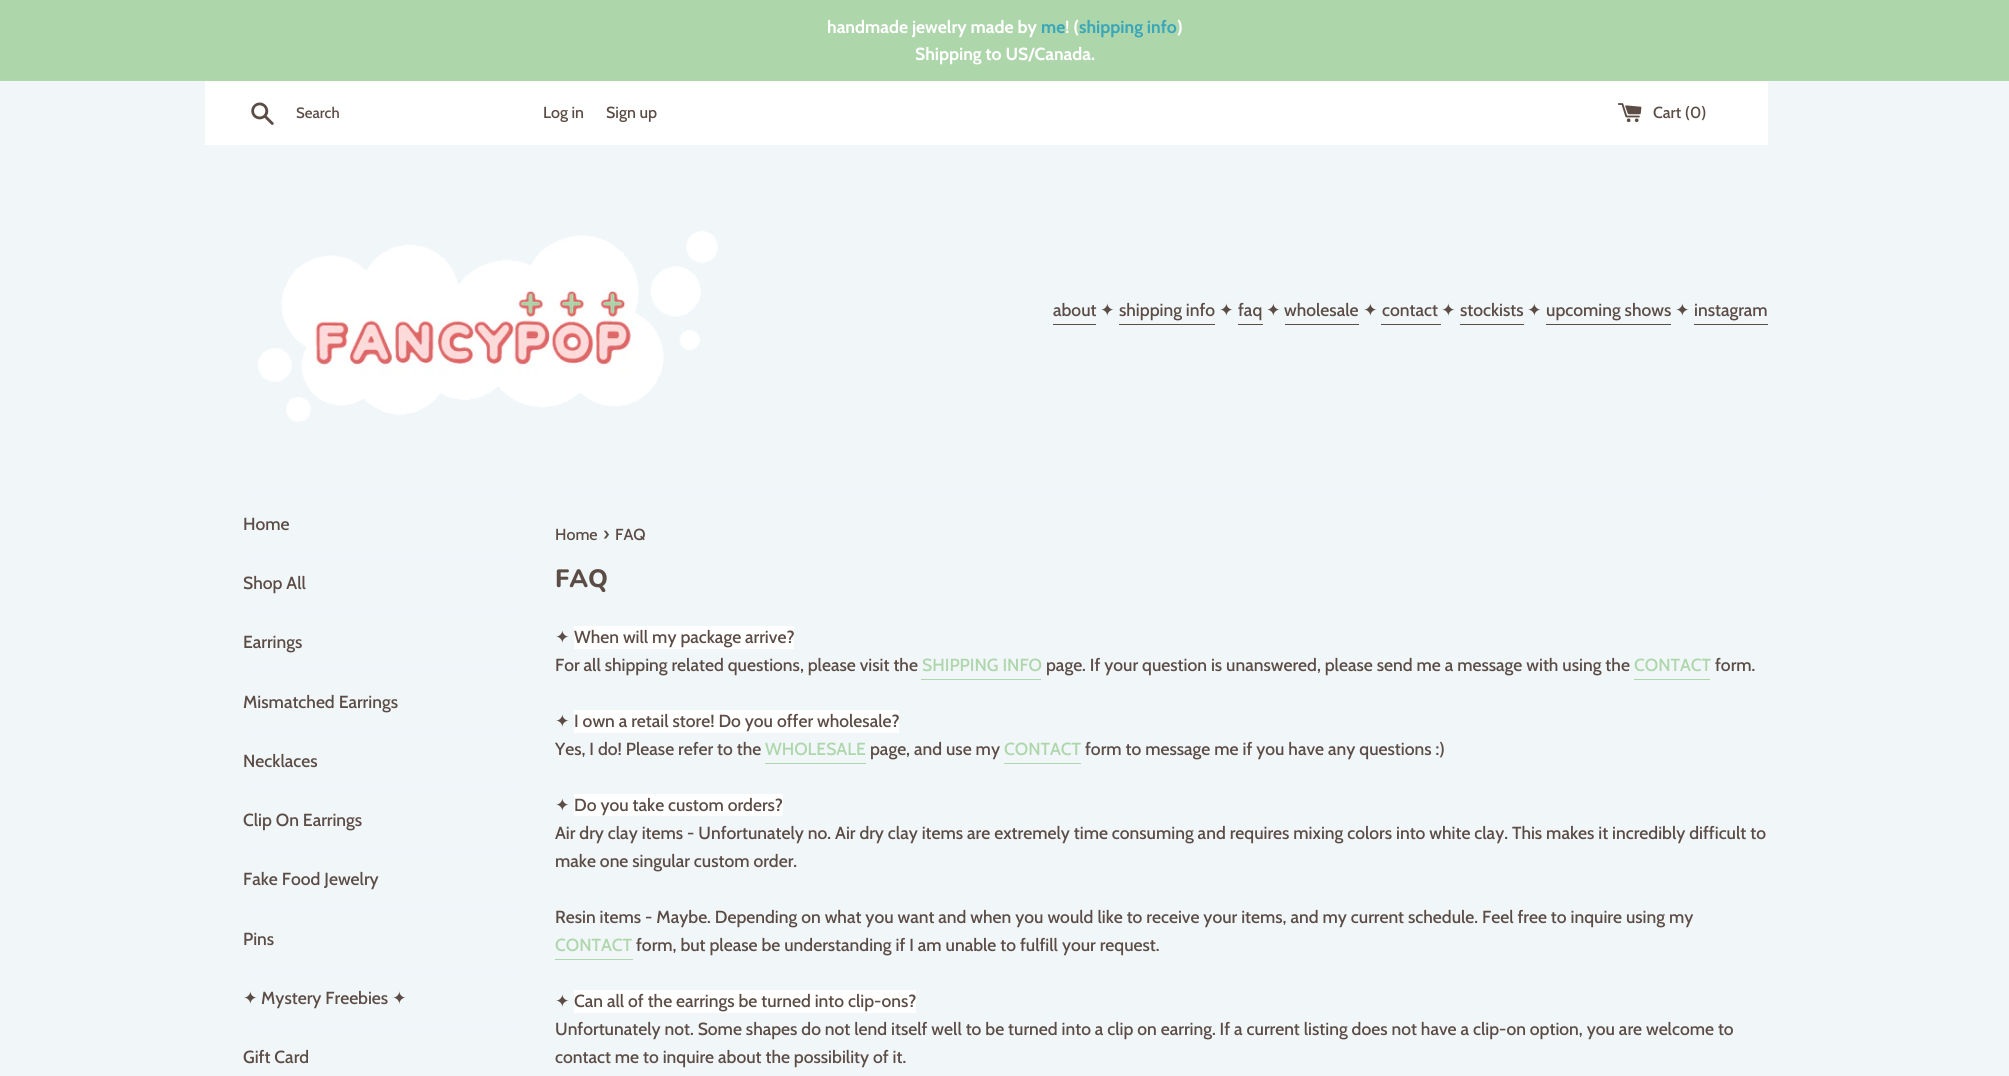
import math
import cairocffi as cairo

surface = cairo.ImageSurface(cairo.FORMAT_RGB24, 2009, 1076)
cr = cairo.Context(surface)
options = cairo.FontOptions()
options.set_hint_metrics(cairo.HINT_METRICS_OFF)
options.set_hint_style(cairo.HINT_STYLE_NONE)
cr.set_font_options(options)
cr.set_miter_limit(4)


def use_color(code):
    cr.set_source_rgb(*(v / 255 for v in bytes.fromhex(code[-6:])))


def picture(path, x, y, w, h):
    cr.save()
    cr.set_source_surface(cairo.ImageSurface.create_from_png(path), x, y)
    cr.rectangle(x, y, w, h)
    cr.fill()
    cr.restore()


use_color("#f1f6f9")
cr.paint()
use_color("#aed6ab")
cr.rectangle(0, 0, 2009, 81)
cr.fill()
cr.select_font_face("Cabin", cairo.FONT_SLANT_NORMAL, cairo.FONT_WEIGHT_BOLD)
cr.set_font_size(17.5)
use_color("#ffffff")
cr.move_to(827, 33)
cr.show_text("handmade jewelry made by")
use_color("#39a6ba")
cr.move_to(1041, 33)
cr.show_text("me")
use_color("#ffffff")
cr.move_to(1065, 33)
cr.show_text("! (")
use_color("#39a6ba")
cr.move_to(1079, 33)
cr.show_text("shipping info")
use_color("#ffffff")
cr.move_to(1177, 33)
cr.show_text(")")
cr.move_to(915, 60)
cr.show_text("Shipping to US/Canada.")
cr.rectangle(205, 81, 1563, 64)
cr.fill()
picture("img1.png", 251, 102, 23, 23)
cr.select_font_face("Cabin Medium")
cr.set_font_size(15)
use_color("#5b4c45")
cr.move_to(296, 118)
cr.show_text("Search")
cr.set_font_size(16)
cr.move_to(543, 118)
cr.show_text("Log in")
cr.move_to(606, 118)
cr.show_text("Sign up")
picture("img2.png", 1618, 103, 24, 20)
cr.move_to(1653, 118)
cr.show_text("Cart (0)")
use_color("#edf6fa")
cr.rectangle(243, 145, 1525, 1)
cr.fill()
picture("img3.png", 258, 231, 460, 191)
cr.set_font_size(17.5)
use_color("#5b4c45")
cr.move_to(1053, 316)
cr.show_text("about")
cr.rectangle(1053, 324, 43, 1)
cr.fill()
cr.select_font_face("DejaVu Sans")
cr.move_to(1100, 316)
cr.show_text("✦")
cr.select_font_face("Cabin Medium")
cr.move_to(1119, 316)
cr.show_text("shipping info")
cr.rectangle(1119, 324, 96, 1)
cr.fill()
cr.select_font_face("DejaVu Sans")
cr.move_to(1219, 316)
cr.show_text("✦")
cr.select_font_face("Cabin Medium")
cr.move_to(1238, 316)
cr.show_text("faq")
cr.rectangle(1238, 324, 25, 1)
cr.fill()
cr.select_font_face("DejaVu Sans")
cr.move_to(1266, 316)
cr.show_text("✦")
cr.select_font_face("Cabin Medium")
cr.move_to(1284, 316)
cr.show_text("wholesale")
cr.rectangle(1285, 324, 74, 1)
cr.fill()
cr.select_font_face("DejaVu Sans")
cr.move_to(1363, 316)
cr.show_text("✦")
cr.select_font_face("Cabin Medium")
cr.move_to(1382, 316)
cr.show_text("contact")
cr.rectangle(1381, 324, 60, 1)
cr.fill()
cr.select_font_face("DejaVu Sans")
cr.move_to(1441, 316)
cr.show_text("✦")
cr.select_font_face("Cabin Medium")
cr.move_to(1460, 316)
cr.show_text("stockists")
cr.rectangle(1460, 324, 64, 1)
cr.fill()
cr.select_font_face("DejaVu Sans")
cr.move_to(1527, 316)
cr.show_text("✦")
cr.select_font_face("Cabin Medium")
cr.move_to(1546, 316)
cr.show_text("upcoming shows")
cr.rectangle(1546, 324, 125, 1)
cr.fill()
cr.select_font_face("DejaVu Sans")
cr.move_to(1675, 316)
cr.show_text("✦")
cr.select_font_face("Cabin Medium")
cr.move_to(1694, 316)
cr.show_text("instagram")
cr.rectangle(1694, 324, 74, 1)
cr.fill()
use_color("#edf6fa")
cr.rectangle(243, 494, 275, 1)
cr.fill()
cr.rectangle(243, 553, 275, 1)
cr.fill()
use_color("#5b4c45")
cr.move_to(243, 530)
cr.show_text("Home")
use_color("#edf6fa")
cr.rectangle(243, 613, 275, 1)
cr.fill()
use_color("#5b4c45")
cr.move_to(243, 589)
cr.show_text("Shop All")
use_color("#edf6fa")
cr.rectangle(243, 671, 275, 1)
cr.fill()
use_color("#5b4c45")
cr.move_to(243, 648)
cr.show_text("Earrings")
use_color("#edf6fa")
cr.rectangle(243, 731, 275, 1)
cr.fill()
use_color("#5b4c45")
cr.move_to(243, 708)
cr.show_text("Mismatched Earrings")
use_color("#edf6fa")
cr.rectangle(243, 790, 275, 1)
cr.fill()
use_color("#5b4c45")
cr.move_to(243, 767)
cr.show_text("Necklaces")
use_color("#edf6fa")
cr.rectangle(243, 849, 275, 1)
cr.fill()
use_color("#5b4c45")
cr.move_to(243, 826)
cr.show_text("Clip On Earrings")
use_color("#edf6fa")
cr.rectangle(243, 909, 275, 1)
cr.fill()
use_color("#5b4c45")
cr.move_to(243, 885)
cr.show_text("Fake Food Jewelry")
use_color("#edf6fa")
cr.rectangle(243, 968, 275, 1)
cr.fill()
use_color("#5b4c45")
cr.move_to(243, 945)
cr.show_text("Pins")
use_color("#edf6fa")
cr.rectangle(243, 1026, 275, 1)
cr.fill()
cr.select_font_face("DejaVu Sans")
use_color("#5b4c45")
cr.move_to(243, 1004)
cr.show_text("✦")
cr.select_font_face("Cabin Medium")
cr.move_to(261, 1004)
cr.show_text("Mystery Freebies")
cr.select_font_face("DejaVu Sans")
cr.move_to(392, 1004)
cr.show_text("✦")
cr.select_font_face("Cabin Medium")
cr.move_to(243, 1063)
cr.show_text("Gift Card")
use_color("#edf6fa")
cr.rectangle(555, 494, 1213, 1)
cr.fill()
cr.set_font_size(16)
use_color("#5b4c45")
cr.move_to(555, 540)
cr.show_text("Home")
cr.set_font_size(19)
cr.move_to(603, 540)
cr.show_text("›")
cr.set_font_size(16)
cr.move_to(615, 540)
cr.show_text("FAQ")
cr.select_font_face("Nunito ExtraBold")
cr.set_font_size(25)
cr.move_to(555, 587)
cr.show_text("FAQ")
cr.select_font_face("DejaVu Sans")
cr.set_font_size(17.5)
cr.move_to(555, 643)
cr.show_text("✦")
use_color("#ffffff")
cr.rectangle(574, 626, 220, 23)
cr.fill()
cr.select_font_face("Cabin Medium")
use_color("#5b4c45")
cr.move_to(574, 643)
cr.show_text("When will my package arrive?")
cr.move_to(555, 671)
cr.show_text("For all shipping related questions, please visit the")
use_color("#aed6ab")
cr.move_to(922, 671)
cr.show_text("SHIPPING INFO")
cr.rectangle(921, 679, 120, 1)
cr.fill()
use_color("#5b4c45")
cr.move_to(1046, 671)
cr.show_text("page. If your question is unanswered, please send me a message with using the")
use_color("#aed6ab")
cr.move_to(1634, 671)
cr.show_text("CONTACT")
cr.rectangle(1634, 679, 76, 1)
cr.fill()
use_color("#5b4c45")
cr.move_to(1715, 671)
cr.show_text("form.")
cr.select_font_face("DejaVu Sans")
cr.move_to(555, 727)
cr.show_text("✦")
use_color("#ffffff")
cr.rectangle(574, 710, 325, 23)
cr.fill()
cr.select_font_face("Cabin Medium")
use_color("#5b4c45")
cr.move_to(574, 727)
cr.show_text("I own a retail store! Do you offer wholesale?")
cr.move_to(555, 755)
cr.show_text("Yes, I do! Please refer to the")
use_color("#aed6ab")
cr.move_to(765, 755)
cr.show_text("WHOLESALE")
cr.rectangle(765, 763, 101, 1)
cr.fill()
use_color("#5b4c45")
cr.move_to(870, 755)
cr.show_text("page, and use my")
use_color("#aed6ab")
cr.move_to(1004, 755)
cr.show_text("CONTACT")
cr.rectangle(1004, 763, 77, 1)
cr.fill()
use_color("#5b4c45")
cr.move_to(1085, 755)
cr.show_text("form to message me if you have any questions :)")
cr.select_font_face("DejaVu Sans")
cr.move_to(555, 811)
cr.show_text("✦")
use_color("#ffffff")
cr.rectangle(574, 794, 209, 22)
cr.fill()
cr.select_font_face("Cabin Medium")
use_color("#5b4c45")
cr.move_to(574, 811)
cr.show_text("Do you take custom orders?")
cr.move_to(555, 839)
cr.show_text("Air dry clay items - Unfortunately no. Air dry clay items are extremely time consuming and requires mixing colors into white clay. This makes it incredibly difficult to")
cr.move_to(555, 867)
cr.show_text("make one singular custom order.")
cr.move_to(555, 923)
cr.show_text("Resin items - Maybe. Depending on what you want and when you would like to receive your items, and my current schedule. Feel free to inquire using my")
use_color("#aed6ab")
cr.move_to(555, 951)
cr.show_text("CONTACT")
cr.rectangle(555, 959, 78, 1)
cr.fill()
use_color("#5b4c45")
cr.move_to(636, 951)
cr.show_text("form, but please be understanding if I am unable to fulfill your request.")
cr.select_font_face("DejaVu Sans")
cr.move_to(555, 1007)
cr.show_text("✦")
use_color("#ffffff")
cr.rectangle(574, 990, 342, 23)
cr.fill()
cr.select_font_face("Cabin Medium")
use_color("#5b4c45")
cr.move_to(574, 1007)
cr.show_text("Can all of the earrings be turned into clip-ons?")
cr.move_to(555, 1035)
cr.show_text("Unfortunately not. Some shapes do not lend itself well to be turned into a clip on earring. If a current listing does not have a clip-on option, you are welcome to")
cr.move_to(555, 1063)
cr.show_text("contact me to inquire about the possibility of it.")
surface.write_to_png("result.png")
